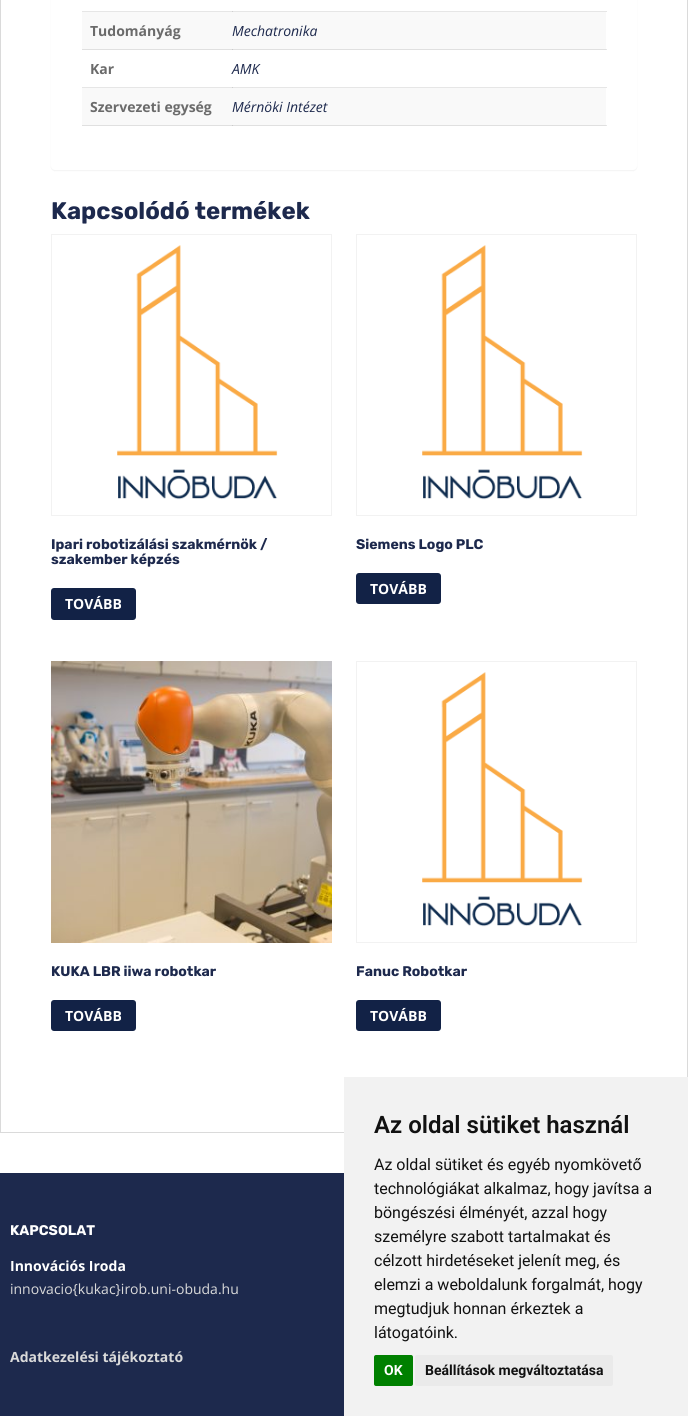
import math
import cairocffi as cairo

surface = cairo.ImageSurface(cairo.FORMAT_RGB24, 688, 1416)
cr = cairo.Context(surface)
options = cairo.FontOptions()
options.set_hint_metrics(cairo.HINT_METRICS_OFF)
options.set_hint_style(cairo.HINT_STYLE_NONE)
cr.set_font_options(options)
cr.set_miter_limit(4)


def use_color(code):
    cr.set_source_rgb(*(v / 255 for v in bytes.fromhex(code[-6:])))


def round_rect(x, y, w, h, r):
    cr.new_sub_path()
    for i, (u, v) in enumerate([(x + w - r, y + h - r), (x + r, y + h - r), (x + r, y + r), (x + w - r, y + r)]):
        cr.arc(u, v, r, i * math.pi / 2, (i + 1) * math.pi / 2)
    cr.close_path()


def shadow(x, y, w, h, r, blur, alpha):
    cr.push_group_with_content(cairo.CONTENT_ALPHA)
    cr.set_operator(cairo.OPERATOR_SOURCE)
    for i in range(15, -16, -2):
        e = blur * i / 6
        if min(w, h) + 2 * e > 0:
            cr.set_source_rgba(0, 0, 0, alpha * math.erfc((i - 1) / 8.5) / 2)
            round_rect(x - e, y - e, w + 2 * e, h + 2 * e, max(0, min(r + e + blur * .6, min(w, h) / 2 + e)))
            cr.fill()
    cr.mask(cr.pop_group())


def picture(path, x, y, w, h):
    cr.save()
    cr.set_source_surface(cairo.ImageSurface.create_from_png(path), x, y)
    cr.rectangle(x, y, w, h)
    cr.fill()
    cr.restore()


use_color("#ffffff")
cr.paint()
cr.rectangle(0.5, -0.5, 687, 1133)
use_color("#dadada")
cr.set_line_width(1)
cr.stroke()
use_color("#000000")
shadow(51, -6, 586, 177, 4, 0.5, 0.05)
use_color("#ffffff")
round_rect(51, -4, 586, 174, 4)
cr.fill()
use_color("#e6e6e6")
cr.rectangle(82, 11, 525, 1)
cr.fill()
cr.rectangle(606, 49, 1, 1)
cr.fill()
cr.rectangle(82, 87, 525, 1)
cr.fill()
cr.rectangle(606, 125, 1, 1)
cr.fill()
use_color("#cfcfcf")
cr.rectangle(232, 11, 1, 1)
cr.fill()
use_color("#f9f9f9")
cr.rectangle(82, 12, 524, 37)
cr.fill()
use_color("#e0e0e0")
cr.rectangle(82, 49, 524, 1)
cr.fill()
cr.select_font_face("Open Sans", cairo.FONT_SLANT_NORMAL, cairo.FONT_WEIGHT_BOLD)
cr.set_font_size(14)
use_color("#6b6b6b")
cr.move_to(90, 36)
cr.show_text("Tudományág")
use_color("#cacaca")
cr.rectangle(232, 49, 1, 1)
cr.fill()
cr.select_font_face("Open Sans", cairo.FONT_SLANT_ITALIC)
use_color("#1d294d")
cr.move_to(232, 36)
cr.show_text("Mechatronika")
cr.select_font_face("Open Sans", cairo.FONT_SLANT_NORMAL, cairo.FONT_WEIGHT_BOLD)
use_color("#6b6b6b")
cr.move_to(90, 74)
cr.show_text("Kar")
use_color("#cfcfcf")
cr.rectangle(232, 87, 1, 1)
cr.fill()
cr.select_font_face("Open Sans", cairo.FONT_SLANT_ITALIC)
use_color("#1d294d")
cr.move_to(232, 74)
cr.show_text("AMK")
use_color("#f9f9f9")
cr.rectangle(82, 88, 524, 37)
cr.fill()
use_color("#e0e0e0")
cr.rectangle(82, 125, 524, 1)
cr.fill()
cr.select_font_face("Open Sans", cairo.FONT_SLANT_NORMAL, cairo.FONT_WEIGHT_BOLD)
use_color("#6b6b6b")
cr.move_to(90, 112)
cr.show_text("Szervezeti egység")
use_color("#cacaca")
cr.rectangle(232, 125, 1, 1)
cr.fill()
cr.select_font_face("Open Sans", cairo.FONT_SLANT_ITALIC)
use_color("#1d294d")
cr.move_to(232, 112)
cr.show_text("Mérnöki Intézet")
cr.select_font_face("Rubik", cairo.FONT_SLANT_NORMAL, cairo.FONT_WEIGHT_BOLD)
cr.set_font_size(24)
cr.move_to(51, 219)
cr.show_text("Kapcsolódó termékek")
cr.rectangle(51.5, 234.5, 280, 281)
use_color("#f2f2f2")
cr.stroke()
picture("img1.png", 117, 245, 161, 255)
cr.set_font_size(14)
use_color("#1d294d")
cr.move_to(51, 549)
cr.show_text("Ipari robotizálási szakmérnök /")
cr.move_to(51, 564)
cr.show_text("szakember képzés")
use_color("#122246")
round_rect(51, 588, 85, 32, 3)
cr.fill()
cr.select_font_face("Open Sans", cairo.FONT_SLANT_NORMAL, cairo.FONT_WEIGHT_BOLD)
use_color("#ffffff")
cr.move_to(65, 609)
cr.show_text("TOVÁBB")
cr.rectangle(356.5, 234.5, 280, 281)
use_color("#f2f2f2")
cr.stroke()
picture("img1.png", 422, 245, 161, 255)
cr.select_font_face("Rubik", cairo.FONT_SLANT_NORMAL, cairo.FONT_WEIGHT_BOLD)
use_color("#1d294d")
cr.move_to(356, 549)
cr.show_text("Siemens Logo PLC")
use_color("#122246")
round_rect(356, 573, 85, 31, 3)
cr.fill()
cr.select_font_face("Open Sans", cairo.FONT_SLANT_NORMAL, cairo.FONT_WEIGHT_BOLD)
use_color("#ffffff")
cr.move_to(370, 594)
cr.show_text("TOVÁBB")
picture("img2.png", 51, 661, 281, 282)
cr.select_font_face("Rubik", cairo.FONT_SLANT_NORMAL, cairo.FONT_WEIGHT_BOLD)
use_color("#1d294d")
cr.move_to(51, 976)
cr.show_text("KUKA LBR iiwa robotkar")
use_color("#122246")
round_rect(51, 1000, 85, 31, 3)
cr.fill()
cr.select_font_face("Open Sans", cairo.FONT_SLANT_NORMAL, cairo.FONT_WEIGHT_BOLD)
use_color("#ffffff")
cr.move_to(65, 1021)
cr.show_text("TOVÁBB")
cr.rectangle(356.5, 661.5, 280, 281)
use_color("#f2f2f2")
cr.stroke()
picture("img3.png", 422, 672, 161, 255)
cr.select_font_face("Rubik", cairo.FONT_SLANT_NORMAL, cairo.FONT_WEIGHT_BOLD)
use_color("#1d294d")
cr.move_to(356, 976)
cr.show_text("Fanuc Robotkar")
use_color("#122246")
round_rect(356, 1000, 85, 31, 3)
cr.fill()
cr.select_font_face("Open Sans", cairo.FONT_SLANT_NORMAL, cairo.FONT_WEIGHT_BOLD)
use_color("#ffffff")
cr.move_to(370, 1021)
cr.show_text("TOVÁBB")
use_color("#1d294d")
cr.rectangle(0, 1173, 344, 243)
cr.fill()
cr.select_font_face("Rubik", cairo.FONT_SLANT_NORMAL, cairo.FONT_WEIGHT_BOLD)
use_color("#ffffff")
cr.move_to(10, 1235)
cr.show_text("KAPCSOLAT")
cr.select_font_face("Open Sans", cairo.FONT_SLANT_NORMAL, cairo.FONT_WEIGHT_BOLD)
cr.move_to(10, 1271)
cr.show_text("Innovációs Iroda")
cr.select_font_face("Open Sans")
use_color("#dadada")
cr.move_to(10, 1294)
cr.show_text("innovacio{kukac}irob.uni-obuda.hu")
cr.select_font_face("Open Sans", cairo.FONT_SLANT_NORMAL, cairo.FONT_WEIGHT_BOLD)
cr.move_to(10, 1362)
cr.show_text("Adatkezelési tájékoztató")
use_color("#f2f2f2")
cr.rectangle(344, 1077, 344, 339)
cr.fill()
cr.select_font_face("Roboto SemiBold")
cr.set_font_size(24)
use_color("#111111")
cr.move_to(374, 1133)
cr.show_text("Az oldal sütiket használ")
cr.select_font_face("Roboto")
cr.set_font_size(16)
cr.move_to(374, 1170)
cr.show_text("Az oldal sütiket és egyéb nyomkövető")
cr.move_to(374, 1194)
cr.show_text("technológiákat alkalmaz, hogy javítsa a")
cr.move_to(374, 1218)
cr.show_text("böngészési élményét, azzal hogy")
cr.move_to(374, 1242)
cr.show_text("személyre szabott tartalmakat és")
cr.move_to(374, 1266)
cr.show_text("célzott hirdetéseket jelenít meg, és")
cr.move_to(374, 1290)
cr.show_text("elemzi a weboldalunk forgalmát, hogy")
cr.move_to(374, 1314)
cr.show_text("megtudjuk honnan érkeztek a")
cr.move_to(374, 1338)
cr.show_text("látogatóink.")
use_color("#008000")
round_rect(374, 1355, 39, 31, 2)
cr.fill()
cr.select_font_face("Roboto", cairo.FONT_SLANT_NORMAL, cairo.FONT_WEIGHT_BOLD)
cr.set_font_size(14)
use_color("#ffffff")
cr.move_to(384, 1375)
cr.show_text("OK")
use_color("#eaeaea")
round_rect(415, 1355, 198, 31, 2)
cr.fill()
use_color("#111111")
cr.move_to(425, 1375)
cr.show_text("Beállítások megváltoztatása")
surface.write_to_png("result.png")
